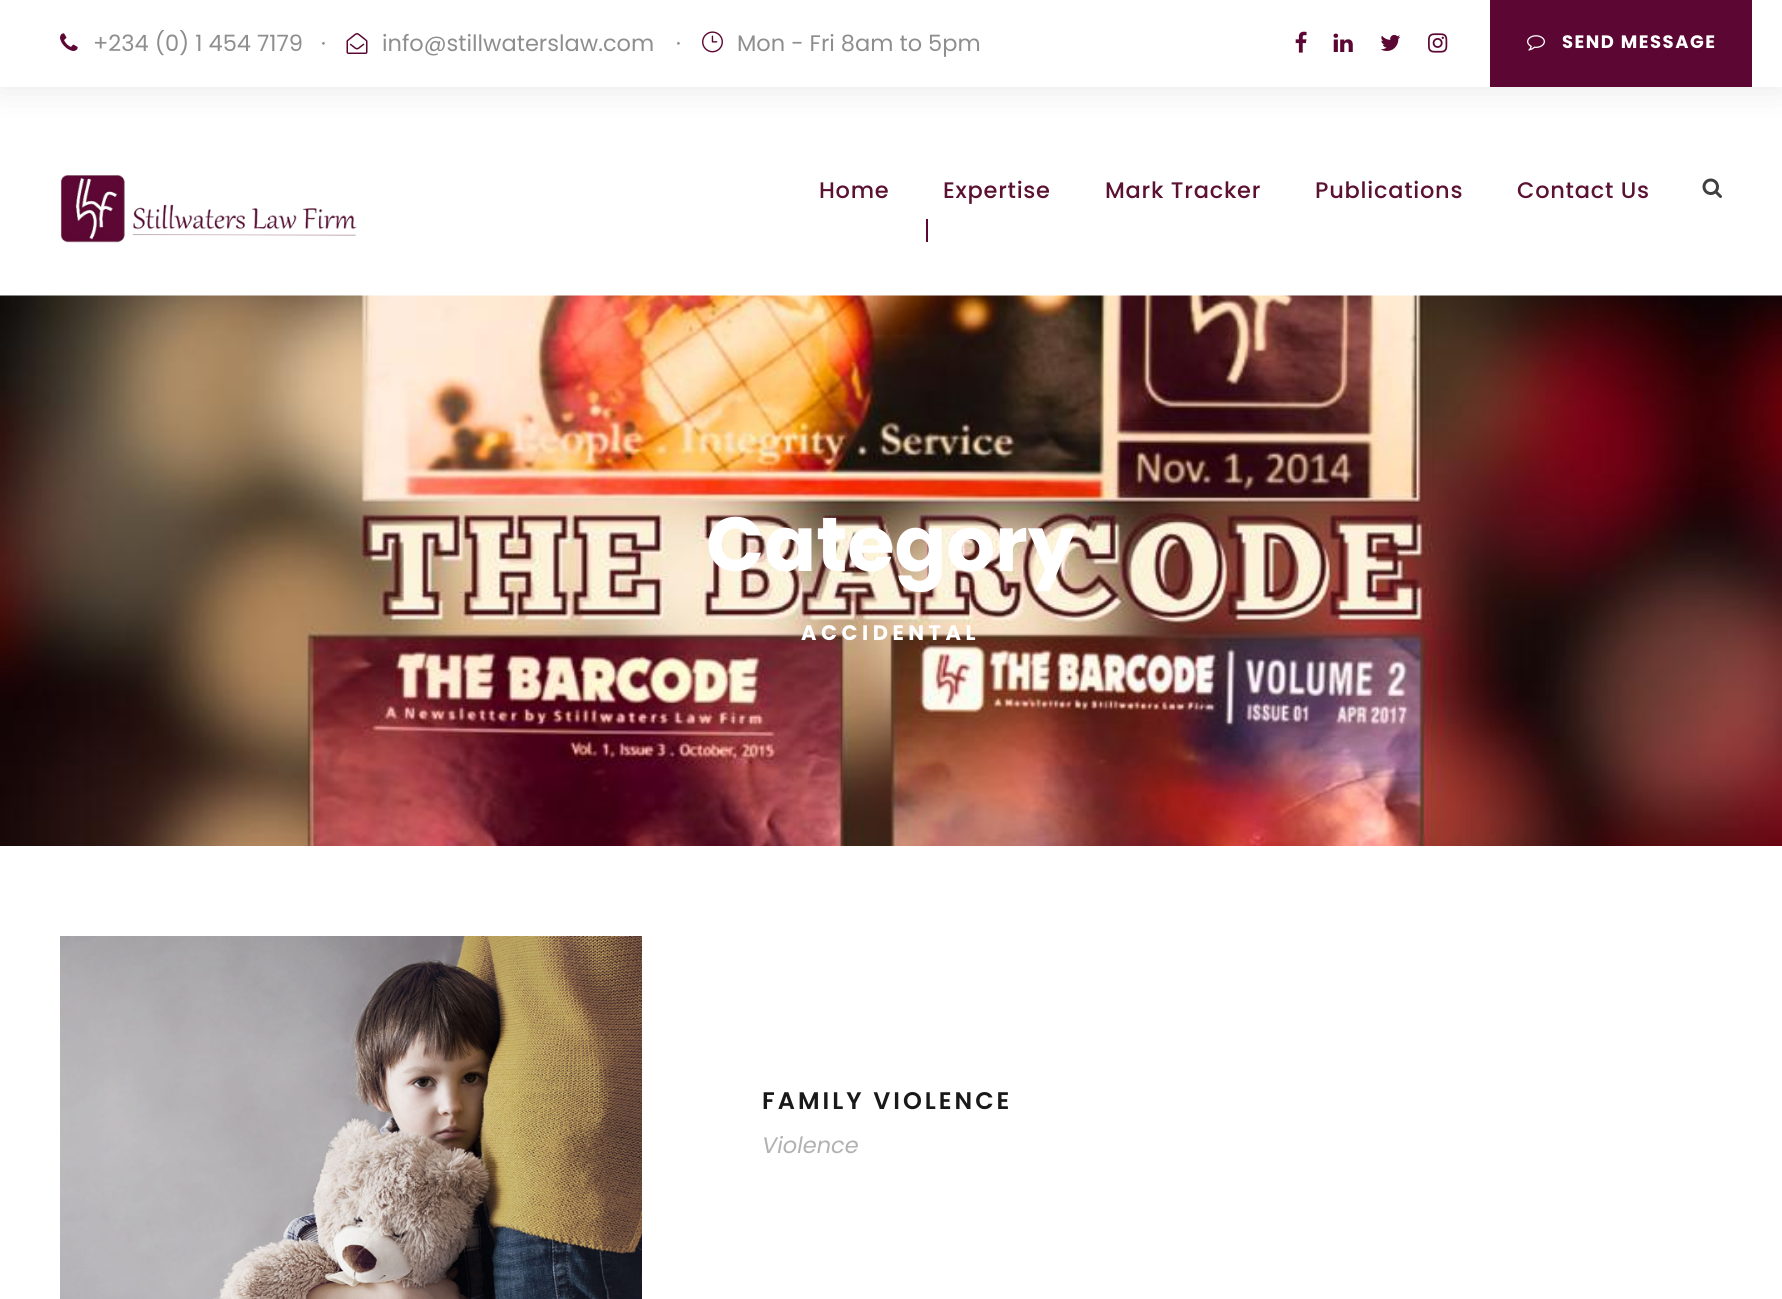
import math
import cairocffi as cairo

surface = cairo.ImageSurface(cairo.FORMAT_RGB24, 1782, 1299)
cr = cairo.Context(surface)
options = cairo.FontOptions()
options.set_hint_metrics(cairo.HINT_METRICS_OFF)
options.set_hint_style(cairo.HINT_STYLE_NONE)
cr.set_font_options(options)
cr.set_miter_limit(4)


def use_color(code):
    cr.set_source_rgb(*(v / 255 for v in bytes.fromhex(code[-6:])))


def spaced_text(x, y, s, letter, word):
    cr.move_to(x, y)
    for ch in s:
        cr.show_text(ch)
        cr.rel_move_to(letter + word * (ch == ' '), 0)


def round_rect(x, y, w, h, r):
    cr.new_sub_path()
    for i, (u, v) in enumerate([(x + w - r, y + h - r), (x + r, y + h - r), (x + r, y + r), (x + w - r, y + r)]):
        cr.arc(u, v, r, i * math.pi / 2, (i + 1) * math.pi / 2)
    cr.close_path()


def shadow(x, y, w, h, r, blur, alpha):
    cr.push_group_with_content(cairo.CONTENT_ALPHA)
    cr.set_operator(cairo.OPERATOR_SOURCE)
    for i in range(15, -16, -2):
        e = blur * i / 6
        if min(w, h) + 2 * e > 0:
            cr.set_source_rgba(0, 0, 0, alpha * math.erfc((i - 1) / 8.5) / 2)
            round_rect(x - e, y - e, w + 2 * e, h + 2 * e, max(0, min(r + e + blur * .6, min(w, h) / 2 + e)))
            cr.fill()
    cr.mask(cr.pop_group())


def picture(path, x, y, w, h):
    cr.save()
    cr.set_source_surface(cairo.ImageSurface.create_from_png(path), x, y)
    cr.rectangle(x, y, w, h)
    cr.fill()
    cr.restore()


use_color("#ffffff")
cr.paint()
use_color("#000000")
shadow(0, 0, 1782, 87, 0, 18, 0.1)
use_color("#ffffff")
cr.rectangle(0, 0, 1782, 87)
cr.fill()
picture("img1.png", 60, 33, 18, 18)
cr.select_font_face("Poppins")
cr.set_font_size(22.5)
use_color("#8e8e8e")
cr.move_to(93, 51)
cr.show_text("+234 (0) 1 454 7179")
cr.move_to(321, 51)
cr.show_text("·")
picture("img2.png", 346, 33, 22, 21)
cr.move_to(382, 51)
cr.show_text("info@stillwaterslaw.com")
cr.move_to(676, 51)
cr.show_text("·")
picture("img3.png", 702, 31, 21, 22)
cr.move_to(737, 51)
cr.show_text("Mon - Fri 8am to 5pm")
picture("img4.png", 1295, 31, 12, 22)
picture("img5.png", 1333, 33, 20, 19)
picture("img6.png", 1380, 34, 21, 17)
picture("img7.png", 1428, 33, 20, 20)
use_color("#5c0733")
cr.rectangle(1490, 0, 262, 87)
cr.fill()
picture("img8.png", 1527, 35, 18, 16)
cr.select_font_face("Poppins", cairo.FONT_SLANT_NORMAL, cairo.FONT_WEIGHT_BOLD)
cr.set_font_size(18)
use_color("#ffffff")
spaced_text(1562, 48, "SEND MESSAGE", 1.5, 0)
picture("img9.png", 60, 175, 297, 68)
cr.select_font_face("Poppins Medium")
cr.set_font_size(22.5)
use_color("#5b1232")
spaced_text(819, 198, "Home", 0.75, 0)
spaced_text(943, 198, "Expertise", 0.75, 0)
spaced_text(1105, 198, "Mark Tracker", 0.75, 0)
spaced_text(1315, 198, "Publications", 0.75, 0)
spaced_text(1517, 198, "Contact Us", 0.75, 0)
use_color("#5c0733")
cr.rectangle(926, 219, 2, 23)
cr.fill()
picture("img10.png", 1702, 178, 20, 20)
picture("img11.png", 0, 295, 1782, 551)
cr.select_font_face("Poppins", cairo.FONT_SLANT_NORMAL, cairo.FONT_WEIGHT_BOLD)
cr.set_font_size(76.5)
use_color("#ffffff")
cr.move_to(706, 571)
cr.show_text("Category")
cr.set_font_size(21)
spaced_text(801, 640, "ACCIDENTAL", 4.5, 0)
picture("img12.png", 60, 936, 582, 363)
cr.select_font_face("Poppins SemiBold")
cr.set_font_size(24)
use_color("#191919")
spaced_text(762, 1109, "FAMILY VIOLENCE", 3, 0)
cr.select_font_face("Poppins", cairo.FONT_SLANT_ITALIC)
cr.set_font_size(22.5)
use_color("#b1b1b1")
cr.move_to(762, 1153)
cr.show_text("Violence")
surface.write_to_png("result.png")
